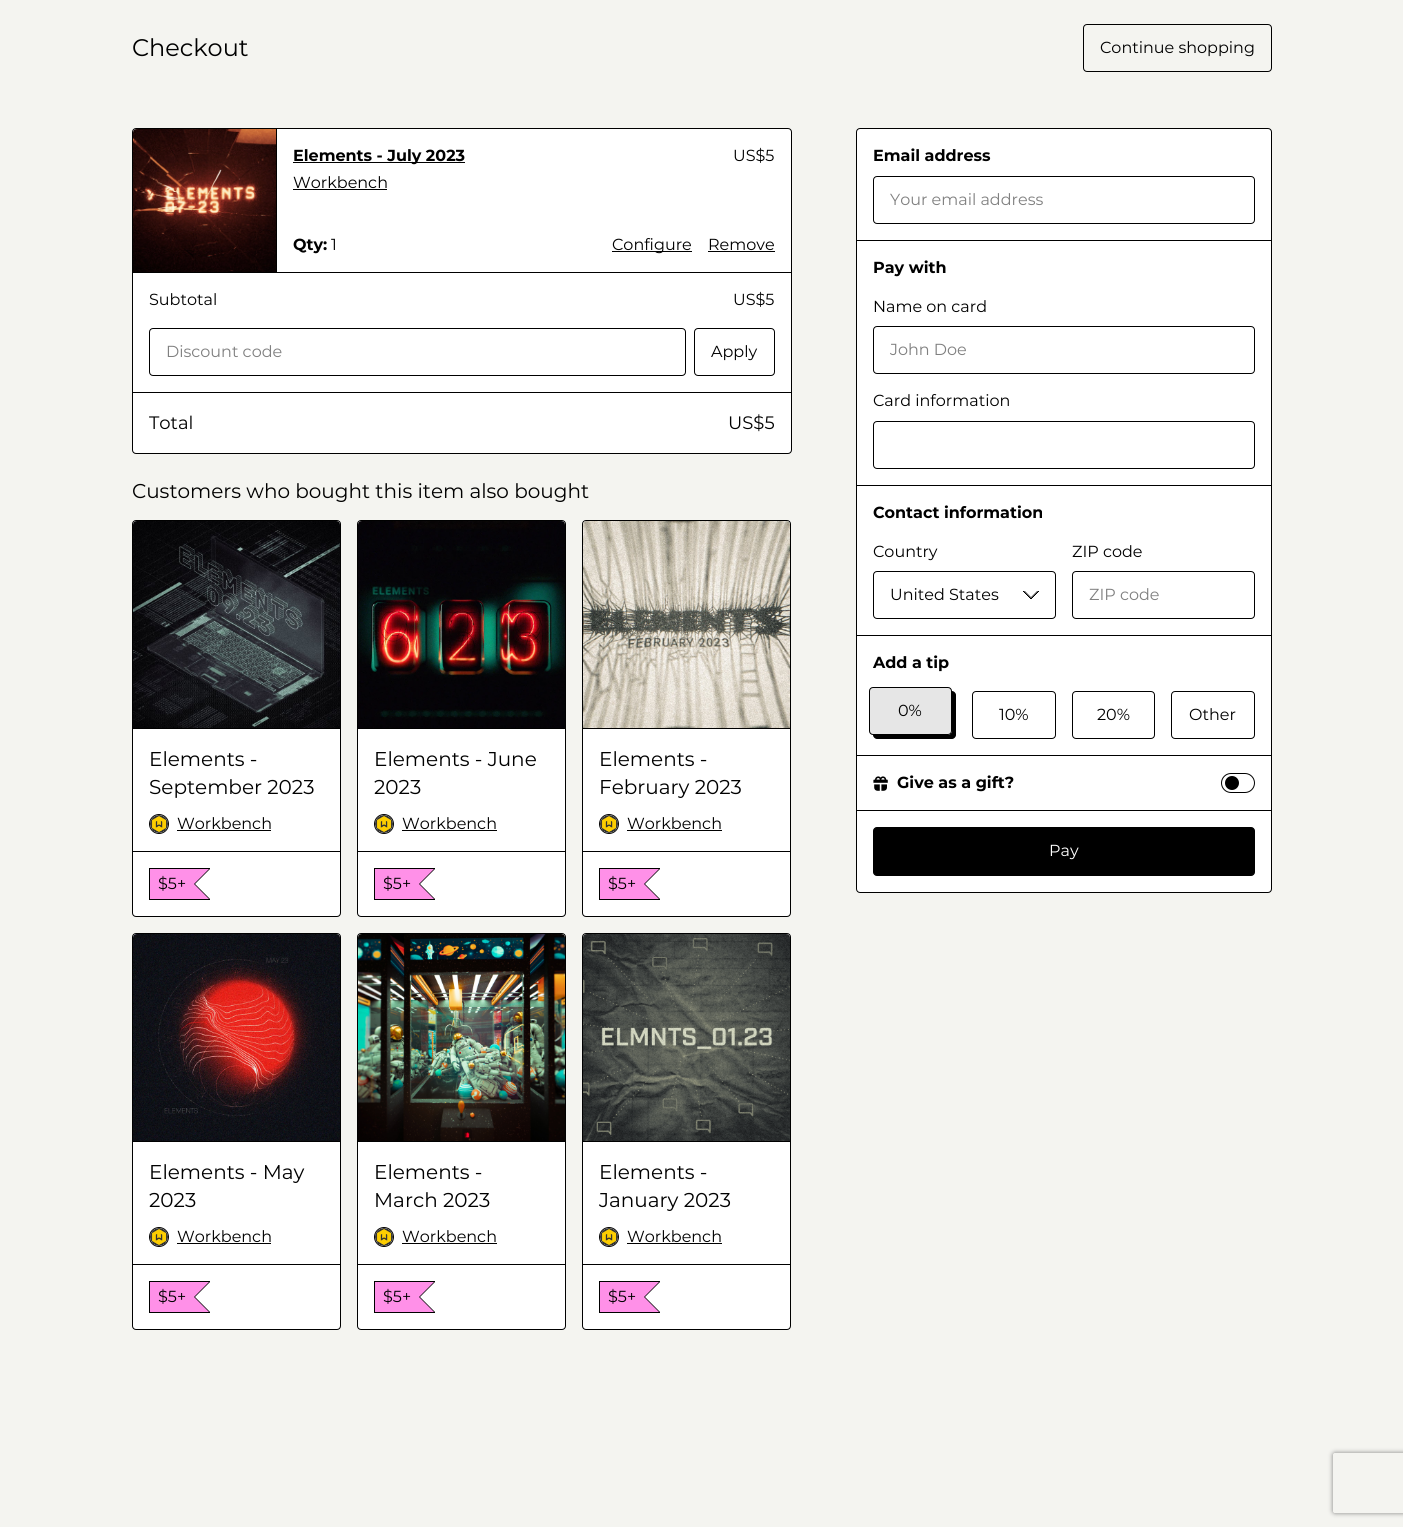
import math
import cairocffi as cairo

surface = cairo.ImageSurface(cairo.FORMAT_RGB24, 1403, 1527)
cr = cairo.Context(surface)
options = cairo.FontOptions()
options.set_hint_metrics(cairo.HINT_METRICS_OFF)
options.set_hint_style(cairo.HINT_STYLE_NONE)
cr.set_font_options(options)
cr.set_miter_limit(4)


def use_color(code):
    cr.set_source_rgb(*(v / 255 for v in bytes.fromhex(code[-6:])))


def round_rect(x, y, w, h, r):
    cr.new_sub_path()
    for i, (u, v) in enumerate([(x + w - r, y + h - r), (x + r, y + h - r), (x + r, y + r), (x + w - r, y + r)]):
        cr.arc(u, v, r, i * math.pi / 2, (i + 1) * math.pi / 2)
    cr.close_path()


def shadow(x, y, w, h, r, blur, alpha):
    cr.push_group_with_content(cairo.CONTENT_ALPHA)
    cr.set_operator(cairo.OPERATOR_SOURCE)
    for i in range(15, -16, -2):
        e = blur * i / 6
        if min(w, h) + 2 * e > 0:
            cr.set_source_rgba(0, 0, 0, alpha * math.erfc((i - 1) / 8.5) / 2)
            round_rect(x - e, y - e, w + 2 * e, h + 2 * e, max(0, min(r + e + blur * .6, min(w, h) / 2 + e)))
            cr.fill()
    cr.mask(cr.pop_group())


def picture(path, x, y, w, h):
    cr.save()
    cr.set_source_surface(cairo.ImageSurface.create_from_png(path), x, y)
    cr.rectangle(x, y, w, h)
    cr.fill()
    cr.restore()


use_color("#f4f4f0")
cr.paint()
cr.select_font_face("Montserrat")
cr.set_font_size(24)
use_color("#000000")
cr.move_to(132, 56)
cr.show_text("Checkout")
round_rect(1083.5, 24.5, 188, 47, 3.5)
cr.set_line_width(1)
cr.stroke()
cr.set_font_size(16)
cr.move_to(1100, 53)
cr.show_text("Continue shopping")
use_color("#ffffff")
round_rect(132.5, 128.5, 659, 325, 3.5)
cr.fill_preserve()
use_color("#000000")
cr.stroke()
cr.rectangle(276, 129, 1, 143)
cr.fill()
picture("img1.png", 133, 129, 143, 143)
cr.rectangle(293, 162, 172, 1)
cr.fill()
cr.select_font_face("Montserrat", cairo.FONT_SLANT_NORMAL, cairo.FONT_WEIGHT_BOLD)
cr.move_to(293, 161)
cr.show_text("Elements - July 2023")
cr.select_font_face("Montserrat")
cr.move_to(293, 188)
cr.show_text("Workbench")
cr.rectangle(293, 189, 94, 1)
cr.fill()
cr.select_font_face("Montserrat", cairo.FONT_SLANT_NORMAL, cairo.FONT_WEIGHT_BOLD)
cr.move_to(293, 250)
cr.show_text("Qty:")
cr.select_font_face("Montserrat")
cr.move_to(331, 250)
cr.show_text("1")
cr.move_to(733, 161)
cr.show_text("US$5")
cr.rectangle(612, 251, 80, 1)
cr.fill()
cr.move_to(612, 250)
cr.show_text("Configure")
cr.move_to(708, 250)
cr.show_text("Remove")
cr.rectangle(708, 251, 67, 1)
cr.fill()
cr.rectangle(133, 272, 658, 1)
cr.fill()
cr.move_to(149, 305)
cr.show_text("Subtotal")
cr.move_to(733, 305)
cr.show_text("US$5")
round_rect(149.5, 328.5, 536, 47, 3.5)
cr.stroke()
use_color("#808080")
cr.move_to(166, 357)
cr.show_text("Discount code")
round_rect(694.5, 328.5, 80, 47, 3.5)
use_color("#000000")
cr.stroke()
cr.move_to(711, 357)
cr.show_text("Apply")
cr.rectangle(133, 392, 658, 1)
cr.fill()
cr.set_font_size(18)
cr.move_to(149, 429)
cr.show_text("Total")
cr.move_to(728, 429)
cr.show_text("US$5")
cr.set_font_size(20)
cr.move_to(132, 498)
cr.show_text("Customers who bought this item also bought")
use_color("#ffffff")
round_rect(132.5, 520.5, 208, 396, 3.5)
cr.fill_preserve()
use_color("#000000")
cr.stroke()
cr.rectangle(133, 728, 207, 1)
cr.fill()
picture("img2.png", 133, 521, 207, 207)
cr.rectangle(133, 851, 207, 1)
cr.fill()
cr.move_to(149, 766)
cr.show_text("Elements -")
cr.move_to(149, 794)
cr.show_text("September 2023")
cr.new_path()
cr.arc(159, 824, 9.5, 0, 2 * math.pi)
cr.stroke()
picture("img3.png", 150, 815, 18, 18)
cr.set_font_size(16)
cr.move_to(177, 829)
cr.show_text("Workbench")
cr.rectangle(177, 830, 94, 1)
cr.fill()
cr.rectangle(149, 868, 61, 1)
cr.fill()
cr.rectangle(149, 899, 61, 1)
cr.fill()
cr.rectangle(149, 868, 1, 32)
cr.fill()
use_color("#ff90e8")
cr.rectangle(150, 869, 44, 30)
cr.fill()
use_color("#000000")
cr.new_path()
cr.move_to(194, 869)
cr.line_to(210, 869)
cr.line_to(195, 884)
cr.close_path()
cr.move_to(210, 899)
cr.line_to(194, 899)
cr.line_to(195, 884)
cr.close_path()
cr.fill()
cr.rectangle(194, 883, 1, 2)
cr.fill()
use_color("#ff90e8")
cr.new_path()
cr.move_to(193, 869)
cr.line_to(209, 869)
cr.line_to(194, 884)
cr.close_path()
cr.move_to(209, 899)
cr.line_to(193, 899)
cr.line_to(194, 884)
cr.close_path()
cr.fill()
use_color("#000000")
cr.move_to(158, 889)
cr.show_text("$5+")
use_color("#ffffff")
round_rect(357.5, 520.5, 208, 396, 3.5)
cr.fill_preserve()
use_color("#000000")
cr.stroke()
cr.rectangle(358, 728, 207, 1)
cr.fill()
picture("img4.png", 358, 521, 207, 207)
cr.rectangle(358, 851, 207, 1)
cr.fill()
cr.set_font_size(20)
cr.move_to(374, 766)
cr.show_text("Elements - June")
cr.move_to(374, 794)
cr.show_text("2023")
cr.new_path()
cr.arc(384, 824, 9.5, 0, 2 * math.pi)
cr.stroke()
picture("img5.png", 375, 815, 18, 18)
cr.set_font_size(16)
cr.move_to(402, 829)
cr.show_text("Workbench")
cr.rectangle(402, 830, 95, 1)
cr.fill()
cr.rectangle(374, 868, 61, 1)
cr.fill()
cr.rectangle(374, 899, 61, 1)
cr.fill()
cr.rectangle(374, 868, 1, 32)
cr.fill()
use_color("#ff90e8")
cr.rectangle(375, 869, 44, 30)
cr.fill()
use_color("#000000")
cr.new_path()
cr.move_to(419, 869)
cr.line_to(435, 869)
cr.line_to(420, 884)
cr.close_path()
cr.move_to(435, 899)
cr.line_to(419, 899)
cr.line_to(420, 884)
cr.close_path()
cr.fill()
cr.rectangle(419, 883, 1, 2)
cr.fill()
use_color("#ff90e8")
cr.new_path()
cr.move_to(418, 869)
cr.line_to(434, 869)
cr.line_to(419, 884)
cr.close_path()
cr.move_to(434, 899)
cr.line_to(418, 899)
cr.line_to(419, 884)
cr.close_path()
cr.fill()
use_color("#000000")
cr.move_to(383, 889)
cr.show_text("$5+")
use_color("#ffffff")
round_rect(582.5, 520.5, 208, 396, 3.5)
cr.fill_preserve()
use_color("#000000")
cr.stroke()
cr.rectangle(583, 728, 207, 1)
cr.fill()
picture("img6.png", 583, 521, 207, 207)
cr.rectangle(583, 851, 207, 1)
cr.fill()
cr.set_font_size(20)
cr.move_to(599, 766)
cr.show_text("Elements -")
cr.move_to(599, 794)
cr.show_text("February 2023")
cr.new_path()
cr.arc(609, 824, 9.5, 0, 2 * math.pi)
cr.stroke()
picture("img7.png", 600, 815, 18, 18)
cr.set_font_size(16)
cr.move_to(627, 829)
cr.show_text("Workbench")
cr.rectangle(627, 830, 95, 1)
cr.fill()
cr.rectangle(599, 868, 61, 1)
cr.fill()
cr.rectangle(599, 899, 61, 1)
cr.fill()
cr.rectangle(599, 868, 1, 32)
cr.fill()
use_color("#ff90e8")
cr.rectangle(600, 869, 44, 30)
cr.fill()
use_color("#000000")
cr.new_path()
cr.move_to(644, 869)
cr.line_to(660, 869)
cr.line_to(645, 884)
cr.close_path()
cr.move_to(660, 899)
cr.line_to(644, 899)
cr.line_to(645, 884)
cr.close_path()
cr.fill()
cr.rectangle(644, 883, 1, 2)
cr.fill()
use_color("#ff90e8")
cr.new_path()
cr.move_to(643, 869)
cr.line_to(659, 869)
cr.line_to(644, 884)
cr.close_path()
cr.move_to(659, 899)
cr.line_to(643, 899)
cr.line_to(644, 884)
cr.close_path()
cr.fill()
use_color("#000000")
cr.move_to(608, 889)
cr.show_text("$5+")
use_color("#ffffff")
round_rect(132.5, 933.5, 208, 396, 3.5)
cr.fill_preserve()
use_color("#000000")
cr.stroke()
cr.rectangle(133, 1141, 207, 1)
cr.fill()
picture("img8.png", 133, 934, 207, 207)
cr.rectangle(133, 1264, 207, 1)
cr.fill()
cr.set_font_size(20)
cr.move_to(149, 1179)
cr.show_text("Elements - May")
cr.move_to(149, 1207)
cr.show_text("2023")
cr.new_path()
cr.arc(159, 1237, 9.5, 0, 2 * math.pi)
cr.stroke()
picture("img3.png", 150, 1228, 18, 18)
cr.set_font_size(16)
cr.move_to(177, 1242)
cr.show_text("Workbench")
cr.rectangle(177, 1243, 94, 1)
cr.fill()
cr.rectangle(149, 1281, 61, 1)
cr.fill()
cr.rectangle(149, 1312, 61, 1)
cr.fill()
cr.rectangle(149, 1281, 1, 32)
cr.fill()
use_color("#ff90e8")
cr.rectangle(150, 1282, 44, 30)
cr.fill()
use_color("#000000")
cr.new_path()
cr.move_to(194, 1282)
cr.line_to(210, 1282)
cr.line_to(195, 1297)
cr.close_path()
cr.move_to(210, 1312)
cr.line_to(194, 1312)
cr.line_to(195, 1297)
cr.close_path()
cr.fill()
cr.rectangle(194, 1296, 1, 2)
cr.fill()
use_color("#ff90e8")
cr.new_path()
cr.move_to(193, 1282)
cr.line_to(209, 1282)
cr.line_to(194, 1297)
cr.close_path()
cr.move_to(209, 1312)
cr.line_to(193, 1312)
cr.line_to(194, 1297)
cr.close_path()
cr.fill()
use_color("#000000")
cr.move_to(158, 1302)
cr.show_text("$5+")
use_color("#ffffff")
round_rect(357.5, 933.5, 208, 396, 3.5)
cr.fill_preserve()
use_color("#000000")
cr.stroke()
cr.rectangle(358, 1141, 207, 1)
cr.fill()
picture("img9.png", 358, 934, 207, 207)
cr.rectangle(358, 1264, 207, 1)
cr.fill()
cr.set_font_size(20)
cr.move_to(374, 1179)
cr.show_text("Elements -")
cr.move_to(374, 1207)
cr.show_text("March 2023")
cr.new_path()
cr.arc(384, 1237, 9.5, 0, 2 * math.pi)
cr.stroke()
picture("img5.png", 375, 1228, 18, 18)
cr.set_font_size(16)
cr.move_to(402, 1242)
cr.show_text("Workbench")
cr.rectangle(402, 1243, 95, 1)
cr.fill()
cr.rectangle(374, 1281, 61, 1)
cr.fill()
cr.rectangle(374, 1312, 61, 1)
cr.fill()
cr.rectangle(374, 1281, 1, 32)
cr.fill()
use_color("#ff90e8")
cr.rectangle(375, 1282, 44, 30)
cr.fill()
use_color("#000000")
cr.new_path()
cr.move_to(419, 1282)
cr.line_to(435, 1282)
cr.line_to(420, 1297)
cr.close_path()
cr.move_to(435, 1312)
cr.line_to(419, 1312)
cr.line_to(420, 1297)
cr.close_path()
cr.fill()
cr.rectangle(419, 1296, 1, 2)
cr.fill()
use_color("#ff90e8")
cr.new_path()
cr.move_to(418, 1282)
cr.line_to(434, 1282)
cr.line_to(419, 1297)
cr.close_path()
cr.move_to(434, 1312)
cr.line_to(418, 1312)
cr.line_to(419, 1297)
cr.close_path()
cr.fill()
use_color("#000000")
cr.move_to(383, 1302)
cr.show_text("$5+")
use_color("#ffffff")
round_rect(582.5, 933.5, 208, 396, 3.5)
cr.fill_preserve()
use_color("#000000")
cr.stroke()
cr.rectangle(583, 1141, 207, 1)
cr.fill()
picture("img10.png", 583, 934, 207, 207)
cr.rectangle(583, 1264, 207, 1)
cr.fill()
cr.set_font_size(20)
cr.move_to(599, 1179)
cr.show_text("Elements -")
cr.move_to(599, 1207)
cr.show_text("January 2023")
cr.new_path()
cr.arc(609, 1237, 9.5, 0, 2 * math.pi)
cr.stroke()
picture("img7.png", 600, 1228, 18, 18)
cr.set_font_size(16)
cr.move_to(627, 1242)
cr.show_text("Workbench")
cr.rectangle(627, 1243, 95, 1)
cr.fill()
cr.rectangle(599, 1281, 61, 1)
cr.fill()
cr.rectangle(599, 1312, 61, 1)
cr.fill()
cr.rectangle(599, 1281, 1, 32)
cr.fill()
use_color("#ff90e8")
cr.rectangle(600, 1282, 44, 30)
cr.fill()
use_color("#000000")
cr.new_path()
cr.move_to(644, 1282)
cr.line_to(660, 1282)
cr.line_to(645, 1297)
cr.close_path()
cr.move_to(660, 1312)
cr.line_to(644, 1312)
cr.line_to(645, 1297)
cr.close_path()
cr.fill()
cr.rectangle(644, 1296, 1, 2)
cr.fill()
use_color("#ff90e8")
cr.new_path()
cr.move_to(643, 1282)
cr.line_to(659, 1282)
cr.line_to(644, 1297)
cr.close_path()
cr.move_to(659, 1312)
cr.line_to(643, 1312)
cr.line_to(644, 1297)
cr.close_path()
cr.fill()
use_color("#000000")
cr.move_to(608, 1302)
cr.show_text("$5+")
use_color("#ffffff")
round_rect(856.5, 128.5, 415, 764, 3.5)
cr.fill_preserve()
use_color("#000000")
cr.stroke()
cr.select_font_face("Montserrat", cairo.FONT_SLANT_NORMAL, cairo.FONT_WEIGHT_BOLD)
cr.move_to(873, 161)
cr.show_text("Email address")
round_rect(873.5, 176.5, 381, 47, 3.5)
cr.stroke()
cr.select_font_face("Montserrat")
use_color("#808080")
cr.move_to(890, 205)
cr.show_text("Your email address")
use_color("#000000")
cr.rectangle(857, 240, 414, 1)
cr.fill()
cr.select_font_face("Montserrat", cairo.FONT_SLANT_NORMAL, cairo.FONT_WEIGHT_BOLD)
cr.move_to(873, 273)
cr.show_text("Pay with")
cr.select_font_face("Montserrat")
cr.move_to(873, 312)
cr.show_text("Name on card")
round_rect(873.5, 326.5, 381, 47, 3.5)
cr.stroke()
use_color("#808080")
cr.move_to(890, 355)
cr.show_text("John Doe")
use_color("#000000")
cr.move_to(873, 406)
cr.show_text("Card information")
round_rect(873.5, 421.5, 381, 47, 3.5)
cr.stroke()
cr.rectangle(857, 485, 414, 1)
cr.fill()
cr.select_font_face("Montserrat", cairo.FONT_SLANT_NORMAL, cairo.FONT_WEIGHT_BOLD)
cr.move_to(873, 518)
cr.show_text("Contact information")
cr.select_font_face("Montserrat")
cr.move_to(873, 557)
cr.show_text("Country")
gradient = cairo.LinearGradient(1039, 599, 1031, 591)
gradient.add_color_stop_rgba(0.5, 1, 1, 1, 1)
gradient.add_color_stop_rgba(0.5, 0, 0, 0, 1)
gradient.add_color_stop_rgba(0.68, 1, 1, 1, 1)
cr.set_source(gradient)
cr.rectangle(1031, 591, 8, 8)
cr.fill()
gradient = cairo.LinearGradient(1023, 599, 1031, 591)
gradient.add_color_stop_rgba(0.5, 1, 1, 1, 1)
gradient.add_color_stop_rgba(0.5, 0, 0, 0, 1)
gradient.add_color_stop_rgba(0.68, 1, 1, 1, 1)
cr.set_source(gradient)
cr.rectangle(1023, 591, 8, 8)
cr.fill()
round_rect(873.5, 571.5, 182, 47, 3.5)
use_color("#000000")
cr.stroke()
cr.move_to(890, 600)
cr.show_text("United States")
cr.move_to(1072, 557)
cr.show_text("ZIP code")
round_rect(1072.5, 571.5, 182, 47, 3.5)
cr.stroke()
use_color("#808080")
cr.move_to(1089, 600)
cr.show_text("ZIP code")
use_color("#000000")
cr.rectangle(857, 635, 414, 1)
cr.fill()
cr.select_font_face("Montserrat", cairo.FONT_SLANT_NORMAL, cairo.FONT_WEIGHT_BOLD)
cr.move_to(873, 668)
cr.show_text("Add a tip")
cr.new_path()
cr.move_to(873, 735)
cr.curve_to(873, 737, 875, 739, 877, 739)
cr.line_to(952, 739)
cr.curve_to(954, 739, 956, 737, 956, 735)
cr.line_to(956, 695)
cr.curve_to(956, 693, 954, 691, 952, 691)
cr.line_to(952, 731)
cr.curve_to(952, 733, 950, 735, 948, 735)
cr.close_path()
cr.fill()
cr.set_source_rgba(0, 0, 0, 0.1)
round_rect(869.5, 687.5, 82, 47, 3.5)
cr.fill_preserve()
use_color("#000000")
cr.stroke()
cr.select_font_face("Montserrat")
cr.move_to(898, 716)
cr.show_text("0%")
round_rect(972.5, 691.5, 83, 47, 3.5)
cr.stroke()
cr.move_to(999, 720)
cr.show_text("10%")
round_rect(1072.5, 691.5, 82, 47, 3.5)
cr.stroke()
cr.move_to(1097, 720)
cr.show_text("20%")
round_rect(1171.5, 691.5, 83, 47, 3.5)
cr.stroke()
cr.move_to(1189, 720)
cr.show_text("Other")
cr.rectangle(857, 755, 414, 1)
cr.fill()
picture("img11.png", 873, 776, 15, 15)
cr.select_font_face("Montserrat", cairo.FONT_SLANT_NORMAL, cairo.FONT_WEIGHT_BOLD)
cr.move_to(897, 788)
cr.show_text("Give as a gift?")
round_rect(1221.5, 773.5, 33, 19, 9.5)
cr.stroke()
cr.arc(1232, 783, 7, 0, 2 * math.pi)
cr.fill()
cr.rectangle(857, 810, 414, 1)
cr.fill()
round_rect(873.5, 827.5, 381, 48, 3.5)
cr.fill_preserve()
cr.stroke()
cr.select_font_face("Montserrat")
use_color("#ffffff")
cr.move_to(1049, 856)
cr.show_text("Pay")
cr.save()
cr.set_fill_rule(cairo.FILL_RULE_EVEN_ODD)
cr.new_path()
cr.move_to(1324, 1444)
cr.line_to(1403, 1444)
cr.line_to(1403, 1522)
cr.line_to(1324, 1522)
cr.close_path()
cr.move_to(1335, 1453)
cr.line_to(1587, 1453)
cr.curve_to(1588, 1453, 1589, 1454, 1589, 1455)
cr.line_to(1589, 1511)
cr.curve_to(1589, 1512, 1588, 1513, 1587, 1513)
cr.line_to(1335, 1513)
cr.curve_to(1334, 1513, 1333, 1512, 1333, 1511)
cr.line_to(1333, 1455)
cr.curve_to(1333, 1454, 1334, 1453, 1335, 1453)
cr.close_path()
cr.clip()
use_color("#808080")
shadow(1333, 1453, 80, 60, 2, 2.5, 1)
cr.restore()
surface.write_to_png("result.png")
